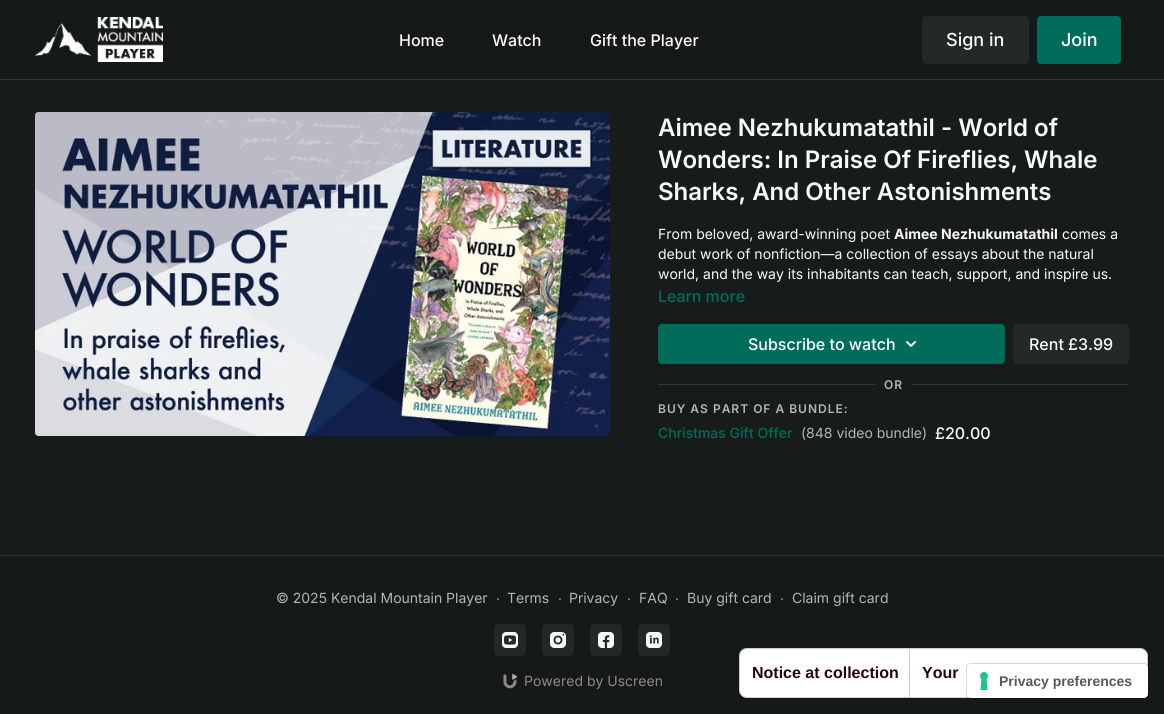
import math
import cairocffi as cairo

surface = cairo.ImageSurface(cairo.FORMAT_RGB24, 1164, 714)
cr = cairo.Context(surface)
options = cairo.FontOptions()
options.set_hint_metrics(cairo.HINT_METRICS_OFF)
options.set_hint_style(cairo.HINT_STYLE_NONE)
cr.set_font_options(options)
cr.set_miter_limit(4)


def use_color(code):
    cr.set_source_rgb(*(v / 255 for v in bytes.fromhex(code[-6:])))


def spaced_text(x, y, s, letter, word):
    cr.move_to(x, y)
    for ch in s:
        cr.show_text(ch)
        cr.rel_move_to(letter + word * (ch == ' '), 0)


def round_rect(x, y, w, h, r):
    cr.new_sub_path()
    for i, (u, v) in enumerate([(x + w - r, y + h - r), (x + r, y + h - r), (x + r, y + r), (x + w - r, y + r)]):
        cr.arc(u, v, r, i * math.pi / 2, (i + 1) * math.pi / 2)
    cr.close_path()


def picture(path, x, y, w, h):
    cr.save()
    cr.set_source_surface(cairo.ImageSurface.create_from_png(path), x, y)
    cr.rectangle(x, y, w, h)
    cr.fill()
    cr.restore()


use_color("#171c1a")
cr.paint()
use_color("#151917")
cr.rectangle(0, 0, 1164, 79)
cr.fill()
use_color("#2f3733")
cr.rectangle(0, 79, 1164, 1)
cr.fill()
picture("img1.png", 35, 17, 128, 45)
cr.select_font_face("Inter Medium")
cr.set_font_size(16)
use_color("#f9fafa")
cr.move_to(399, 46)
cr.show_text("Home")
cr.move_to(492, 46)
cr.show_text("Watch")
cr.move_to(590, 46)
cr.show_text("Gift the Player")
use_color("#232926")
round_rect(922, 16, 107, 48, 4)
cr.fill()
cr.set_font_size(18)
use_color("#f9fafa")
cr.move_to(946, 46)
cr.show_text("Sign in")
use_color("#006c5a")
round_rect(1037, 16, 84, 48, 4)
cr.fill()
use_color("#ffffff")
cr.move_to(1061, 46)
cr.show_text("Join")
picture("img2.png", 35, 112, 575, 324)
cr.select_font_face("Inter SemiBold")
cr.set_font_size(24)
use_color("#f9fafa")
cr.move_to(658, 136)
cr.show_text("Aimee Nezhukumatathil - World of")
cr.move_to(658, 168)
cr.show_text("Wonders: In Praise Of Fireflies, Whale")
cr.move_to(658, 200)
cr.show_text("Sharks, And Other Astonishments")
cr.select_font_face("Inter")
cr.set_font_size(14)
cr.move_to(658, 239)
cr.show_text("From beloved, award-winning poet")
cr.select_font_face("Inter", cairo.FONT_SLANT_NORMAL, cairo.FONT_WEIGHT_BOLD)
cr.move_to(894, 239)
cr.show_text("Aimee Nezhukumatathil")
cr.select_font_face("Inter")
cr.move_to(1062, 239)
cr.show_text("comes a")
cr.move_to(658, 259)
cr.show_text("debut work of nonfiction—a collection of essays about the natural")
cr.move_to(658, 279)
cr.show_text("world, and the way its inhabitants can teach, support, and inspire us.")
cr.select_font_face("Inter Medium")
cr.set_font_size(16)
use_color("#006c5a")
cr.move_to(658, 302)
cr.show_text("Learn more")
round_rect(658, 324, 347, 40, 4)
cr.fill()
use_color("#ffffff")
cr.move_to(748, 350)
cr.show_text("Subscribe to watch")
picture("img3.png", 906, 341, 10, 6)
use_color("#232926")
round_rect(1013, 324, 116, 40, 4)
cr.fill()
use_color("#f9fafa")
cr.move_to(1029, 350)
cr.show_text("Rent £3.99")
use_color("#2f3733")
cr.rectangle(658, 384, 471, 1)
cr.fill()
use_color("#171c1a")
cr.rectangle(876, 384, 35, 1)
cr.fill()
cr.select_font_face("Inter SemiBold")
cr.set_font_size(12)
use_color("#acb9b3")
spaced_text(884, 389, "OR", 1, 0)
spaced_text(658, 413, "BUY AS PART OF A BUNDLE:", 1, 0)
cr.select_font_face("Inter Medium")
cr.set_font_size(14)
use_color("#006c5a")
cr.move_to(658, 438)
cr.show_text("Christmas Gift Offer")
cr.select_font_face("Inter")
use_color("#acb9b3")
cr.move_to(801, 438)
cr.show_text("(848 video bundle)")
cr.select_font_face("Inter Medium")
cr.set_font_size(16)
use_color("#f9fafa")
cr.move_to(935, 439)
cr.show_text("£20.00")
use_color("#151917")
cr.rectangle(0, 556, 1164, 158)
cr.fill()
use_color("#2f3733")
cr.rectangle(0, 555, 1164, 1)
cr.fill()
cr.select_font_face("Inter")
cr.set_font_size(14)
use_color("#acb9b3")
cr.move_to(276, 603)
cr.show_text("© 2025 Kendal Mountain Player")
cr.select_font_face("Liberation Sans")
cr.move_to(496, 603)
cr.show_text("∙")
cr.select_font_face("Inter")
cr.move_to(507, 603)
cr.show_text("Terms")
cr.select_font_face("Liberation Sans")
cr.move_to(558, 603)
cr.show_text("∙")
cr.select_font_face("Inter")
cr.move_to(569, 603)
cr.show_text("Privacy")
cr.select_font_face("Liberation Sans")
cr.move_to(627, 603)
cr.show_text("∙")
cr.select_font_face("Inter")
cr.move_to(639, 603)
cr.show_text("FAQ")
cr.select_font_face("Liberation Sans")
cr.move_to(675, 603)
cr.show_text("∙")
cr.select_font_face("Inter")
cr.move_to(687, 603)
cr.show_text("Buy gift card")
cr.select_font_face("Liberation Sans")
cr.move_to(780, 603)
cr.show_text("∙")
cr.select_font_face("Inter")
cr.move_to(792, 603)
cr.show_text("Claim gift card")
use_color("#232926")
round_rect(494, 624, 32, 32, 4)
cr.fill()
picture("img4.png", 502, 632, 16, 16)
round_rect(542, 624, 32, 32, 4)
cr.fill()
picture("img5.png", 550, 632, 16, 16)
round_rect(590, 624, 32, 32, 4)
cr.fill()
picture("img6.png", 598, 632, 16, 16)
round_rect(638, 624, 32, 32, 4)
cr.fill()
picture("img7.png", 646, 632, 16, 16)
picture("img8.png", 503, 673, 15, 16)
use_color("#8a8a8a")
cr.move_to(524, 686)
cr.show_text("Powered by Uscreen")
use_color("#ffffff")
round_rect(739, 648, 409, 50, 8)
cr.fill()
round_rect(739.5, 648.5, 408, 49, 7.5)
cr.set_source_rgba(0, 0, 0, 0.2)
cr.set_line_width(1)
cr.stroke()
cr.select_font_face("Liberation Sans", cairo.FONT_SLANT_NORMAL, cairo.FONT_WEIGHT_BOLD)
cr.set_font_size(16)
use_color("#280404")
cr.move_to(752, 678)
cr.show_text("Notice at collection")
use_color("#cccccc")
cr.rectangle(909, 649, 1, 48)
cr.fill()
use_color("#280404")
cr.move_to(922, 678)
cr.show_text("Your")
round_rect(966.5, 663.5, 182, 35, 4.5)
cr.set_source_rgba(0, 0, 0, 0.15)
cr.stroke()
use_color("#ffffff")
round_rect(967, 664, 181, 34, 4)
cr.fill()
picture("img9.png", 980, 672, 8, 18)
cr.set_font_size(14)
use_color("#595959")
cr.move_to(999, 686)
cr.show_text("Privacy preferences")
surface.write_to_png("result.png")
